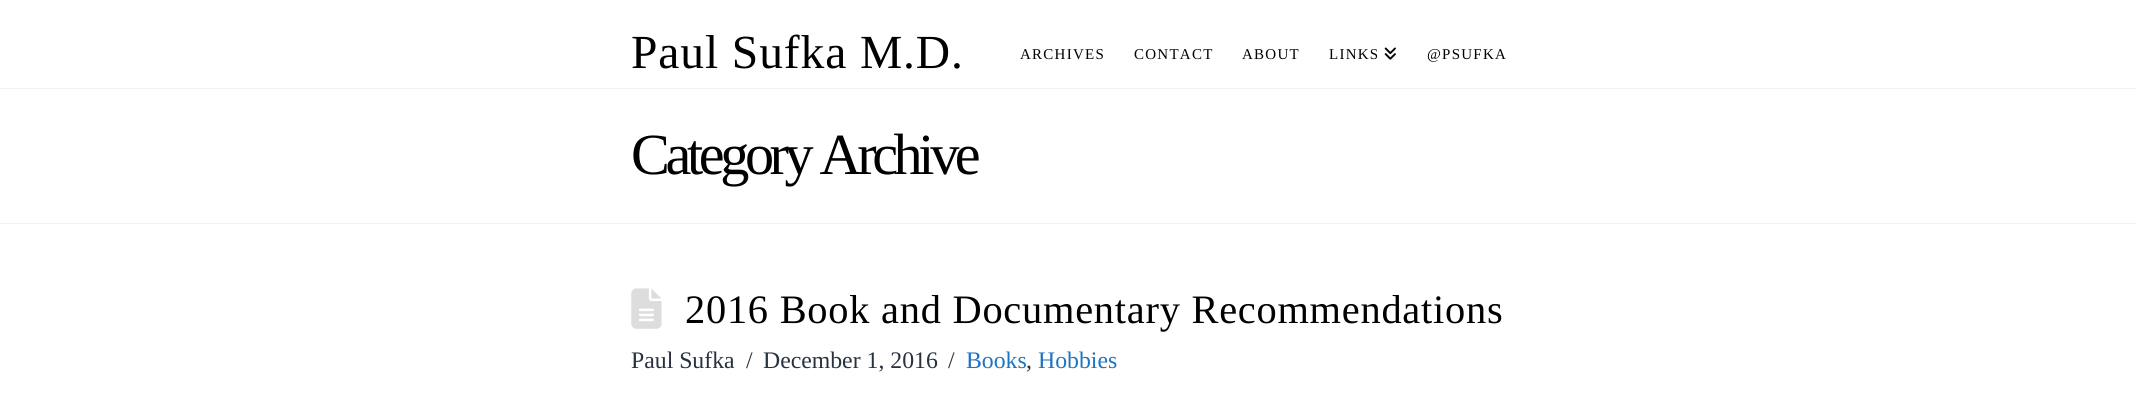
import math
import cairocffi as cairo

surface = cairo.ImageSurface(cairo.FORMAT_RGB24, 2137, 416)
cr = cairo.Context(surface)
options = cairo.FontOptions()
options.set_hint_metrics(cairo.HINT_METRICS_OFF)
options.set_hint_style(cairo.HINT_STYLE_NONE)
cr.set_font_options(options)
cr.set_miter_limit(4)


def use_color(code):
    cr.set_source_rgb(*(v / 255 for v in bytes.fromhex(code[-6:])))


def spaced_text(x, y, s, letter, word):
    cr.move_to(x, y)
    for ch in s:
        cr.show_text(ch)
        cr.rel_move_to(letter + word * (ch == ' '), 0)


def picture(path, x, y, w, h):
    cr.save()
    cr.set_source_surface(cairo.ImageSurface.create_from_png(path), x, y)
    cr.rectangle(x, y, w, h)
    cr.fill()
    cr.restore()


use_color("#ffffff")
cr.paint()
cr.select_font_face("Liberation Serif")
cr.set_font_size(47.5)
use_color("#000000")
spaced_text(631, 68, "Paul Sufka M.D.", 0.9, 0)
cr.set_font_size(15)
spaced_text(1020, 59, "ARCHIVES", 1.25, 0)
spaced_text(1134, 59, "CONTACT", 1.25, 0)
spaced_text(1242, 59, "ABOUT", 1.25, 0)
spaced_text(1329, 59, "LINKS", 1.25, 0)
picture("img1.png", 1384, 47, 12, 13)
spaced_text(1427, 59, "@PSUFKA", 1.25, 0)
use_color("#f2f2f2")
cr.rectangle(0, 88, 2137, 1)
cr.fill()
cr.rectangle(0, 223, 2137, 1)
cr.fill()
cr.set_font_size(58.25)
use_color("#000000")
spaced_text(631, 174, "Category Archive", -4.4, 0)
picture("img2.png", 631, 288, 31, 41)
cr.set_font_size(40.4)
spaced_text(685, 323, "2016 Book and Documentary Recommendations", 0.75, 0)
cr.set_font_size(23.75)
use_color("#28323f")
cr.move_to(631, 368)
cr.show_text("Paul Sufka")
cr.move_to(746, 368)
cr.show_text("/")
cr.move_to(763, 368)
cr.show_text("December 1, 2016")
cr.move_to(948, 368)
cr.show_text("/")
use_color("#1e73be")
cr.move_to(966, 368)
cr.show_text("Books")
use_color("#28323f")
cr.move_to(1026, 368)
cr.show_text(",")
use_color("#1e73be")
cr.move_to(1038, 368)
cr.show_text("Hobbies")
surface.write_to_png("result.png")
